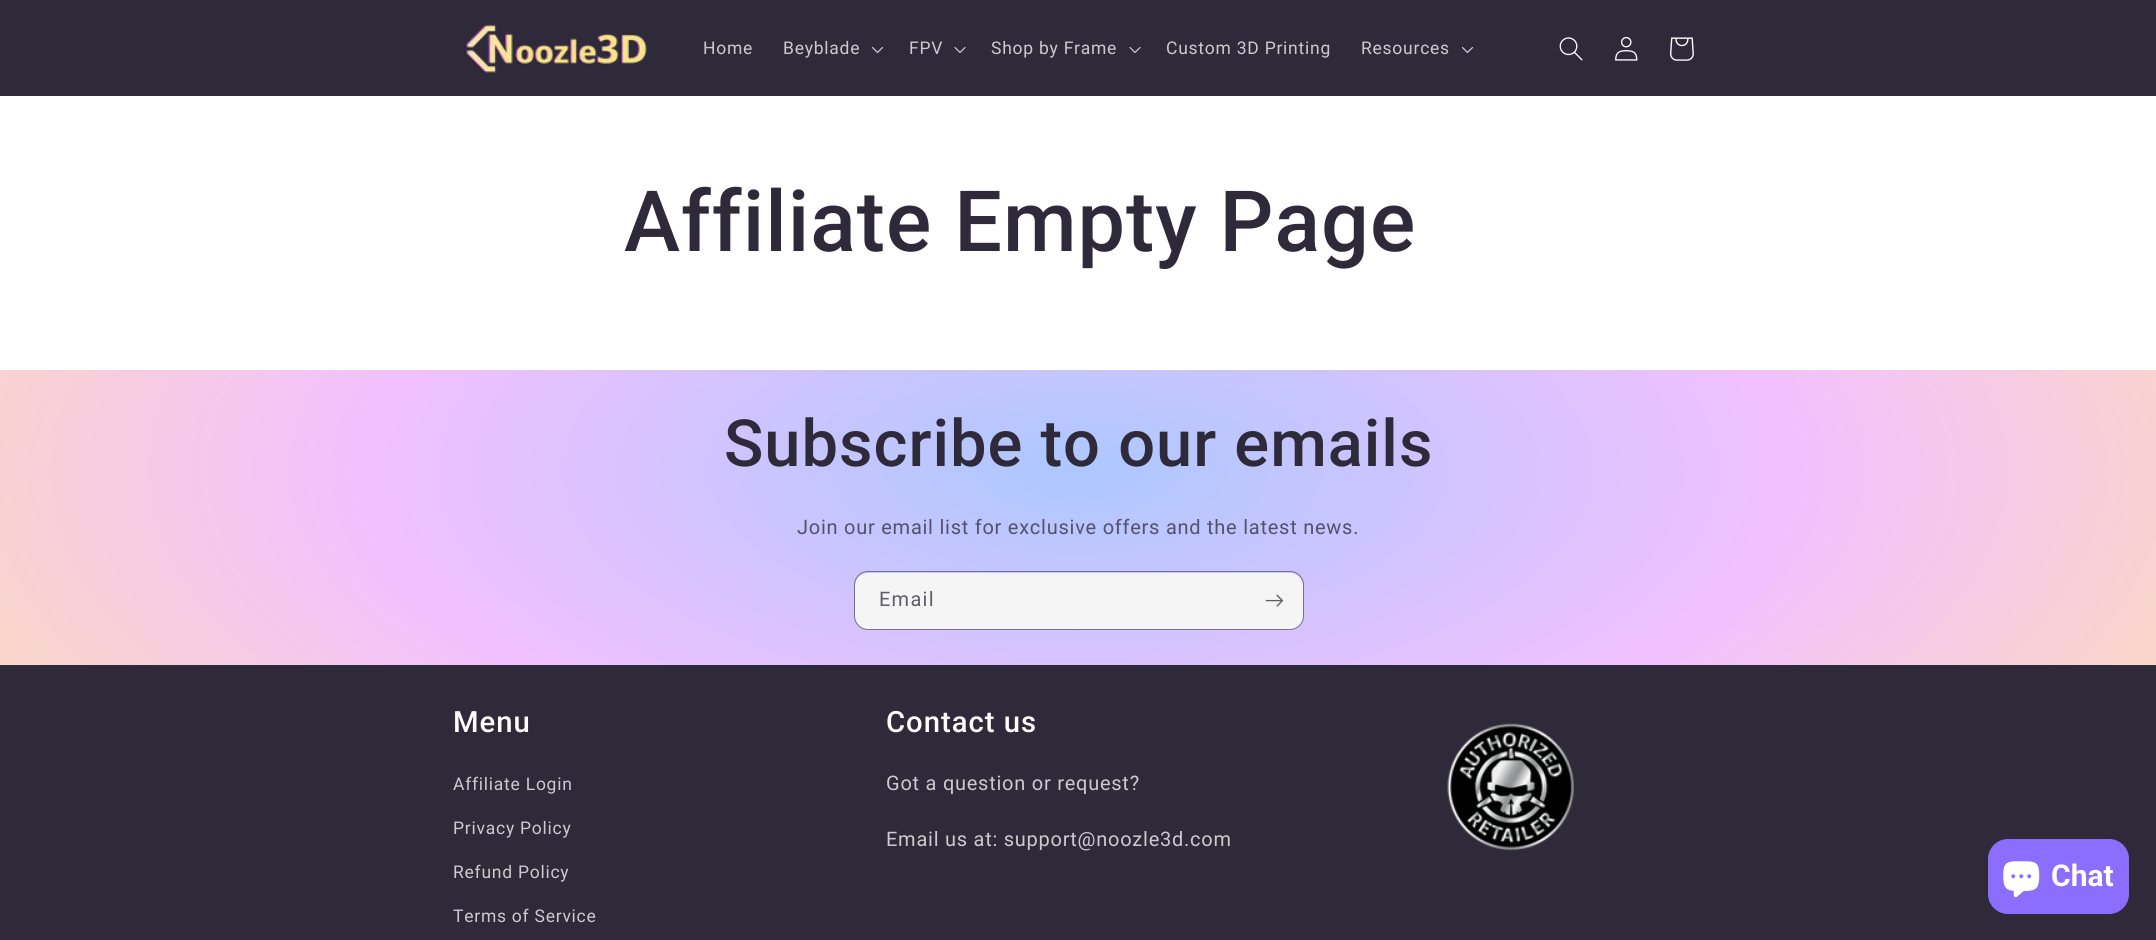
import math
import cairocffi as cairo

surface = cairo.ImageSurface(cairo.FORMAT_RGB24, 2156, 940)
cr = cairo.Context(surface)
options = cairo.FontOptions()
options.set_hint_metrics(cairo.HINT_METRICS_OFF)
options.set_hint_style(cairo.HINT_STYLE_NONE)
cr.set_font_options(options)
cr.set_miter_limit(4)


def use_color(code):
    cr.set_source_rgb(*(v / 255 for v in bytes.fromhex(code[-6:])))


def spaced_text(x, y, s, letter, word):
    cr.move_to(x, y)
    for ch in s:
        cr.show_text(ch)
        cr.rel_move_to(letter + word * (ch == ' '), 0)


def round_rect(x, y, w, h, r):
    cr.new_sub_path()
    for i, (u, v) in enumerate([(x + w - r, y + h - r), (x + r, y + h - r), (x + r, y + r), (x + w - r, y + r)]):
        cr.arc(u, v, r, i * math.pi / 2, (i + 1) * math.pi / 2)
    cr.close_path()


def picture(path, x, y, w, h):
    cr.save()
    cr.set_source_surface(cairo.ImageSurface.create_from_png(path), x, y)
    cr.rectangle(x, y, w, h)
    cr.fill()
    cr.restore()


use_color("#ffffff")
cr.paint()
use_color("#2e2a39")
cr.rectangle(0, 0, 2156, 96)
cr.fill()
picture("img1.png", 465, 24, 182, 49)
cr.select_font_face("Roboto")
cr.set_font_size(17.5)
use_color("#cbcace")
spaced_text(703, 54, "Home", 0.75, 0)
spaced_text(783, 54, "Beyblade", 0.75, 0)
picture("img2.png", 871, 46, 13, 8)
spaced_text(909, 54, "FPV", 0.75, 0)
picture("img3.png", 954, 47, 12, 6)
spaced_text(991, 54, "Shop by Frame", 0.75, 0)
picture("img3.png", 1129, 47, 12, 6)
spaced_text(1166, 54, "Custom 3D Printing", 0.75, 0)
spaced_text(1361, 54, "Resources", 0.75, 0)
picture("img2.png", 1461, 46, 13, 8)
picture("img4.png", 1559, 37, 24, 24)
picture("img5.png", 1615, 36, 23, 25)
picture("img6.png", 1670, 37, 24, 24)
cr.select_font_face("Roboto Medium")
cr.set_font_size(84.5)
use_color("#2e2a39")
spaced_text(624, 251, "Affiliate Empty Page", 1, 0)
gradient = cairo.RadialGradient(0, 0, 0, 0, 0, 1)
gradient.set_matrix(cairo.Matrix(1 / 1525, 0, 0, 1 / 665, -1 * 1078 / 1525, -1 * 470 / 665))
gradient.add_color_stop_rgba(0, 0.678, 0.784, 1, 1)
gradient.add_color_stop_rgba(0.47, 0.949, 0.753, 1, 1)
gradient.add_color_stop_rgba(1, 1, 0.91, 0.616, 1)
cr.set_source(gradient)
cr.rectangle(0, 370, 2156, 295)
cr.fill()
cr.set_font_size(65)
use_color("#2e2a39")
spaced_text(724, 466, "Subscribe to our emails", 1, 0)
cr.select_font_face("Roboto")
cr.set_font_size(20)
use_color("#53516b")
spaced_text(797, 534, "Join our email list for exclusive offers and the latest news.", 0.75, 0)
use_color("#f5f5f5")
round_rect(855, 573, 448, 56, 13)
cr.fill()
round_rect(854.5, 571.5, 449, 58, 13.5)
cr.set_source_rgba(0.18, 0.165, 0.224, 0.55)
cr.set_line_width(1)
cr.stroke()
use_color("#605d68")
spaced_text(879, 606, "Email", 1.25, 0)
picture("img7.png", 1265, 594, 18, 13)
use_color("#2e2a39")
cr.rectangle(0, 665, 2156, 275)
cr.fill()
cr.select_font_face("Roboto Medium")
cr.set_font_size(29.25)
use_color("#ffffff")
spaced_text(453, 732, "Menu", 1, 0)
cr.select_font_face("Roboto")
cr.set_font_size(17.5)
use_color("#cbcace")
spaced_text(453, 790, "Affiliate Login", 0.75, 0)
spaced_text(453, 834, "Privacy Policy", 0.75, 0)
spaced_text(453, 878, "Refund Policy", 0.75, 0)
spaced_text(453, 922, "Terms of Service", 0.75, 0)
cr.select_font_face("Roboto Medium")
cr.set_font_size(29.25)
use_color("#ffffff")
spaced_text(886, 732, "Contact us", 1, 0)
cr.select_font_face("Roboto")
cr.set_font_size(20)
use_color("#cbcace")
spaced_text(886, 790, "Got a question or request?", 0.75, 0)
spaced_text(886, 846, "Email us at: support@noozle3d.com", 0.75, 0)
picture("img8.png", 1447, 723, 127, 128)
use_color("#8c6eff")
round_rect(1988, 839, 141, 75, 20)
cr.fill()
picture("img9.png", 2003, 861, 37, 37)
cr.select_font_face("Roboto", cairo.FONT_SLANT_NORMAL, cairo.FONT_WEIGHT_BOLD)
cr.set_font_size(30)
use_color("#ffffff")
cr.move_to(2051, 886)
cr.show_text("Chat")
surface.write_to_png("result.png")
